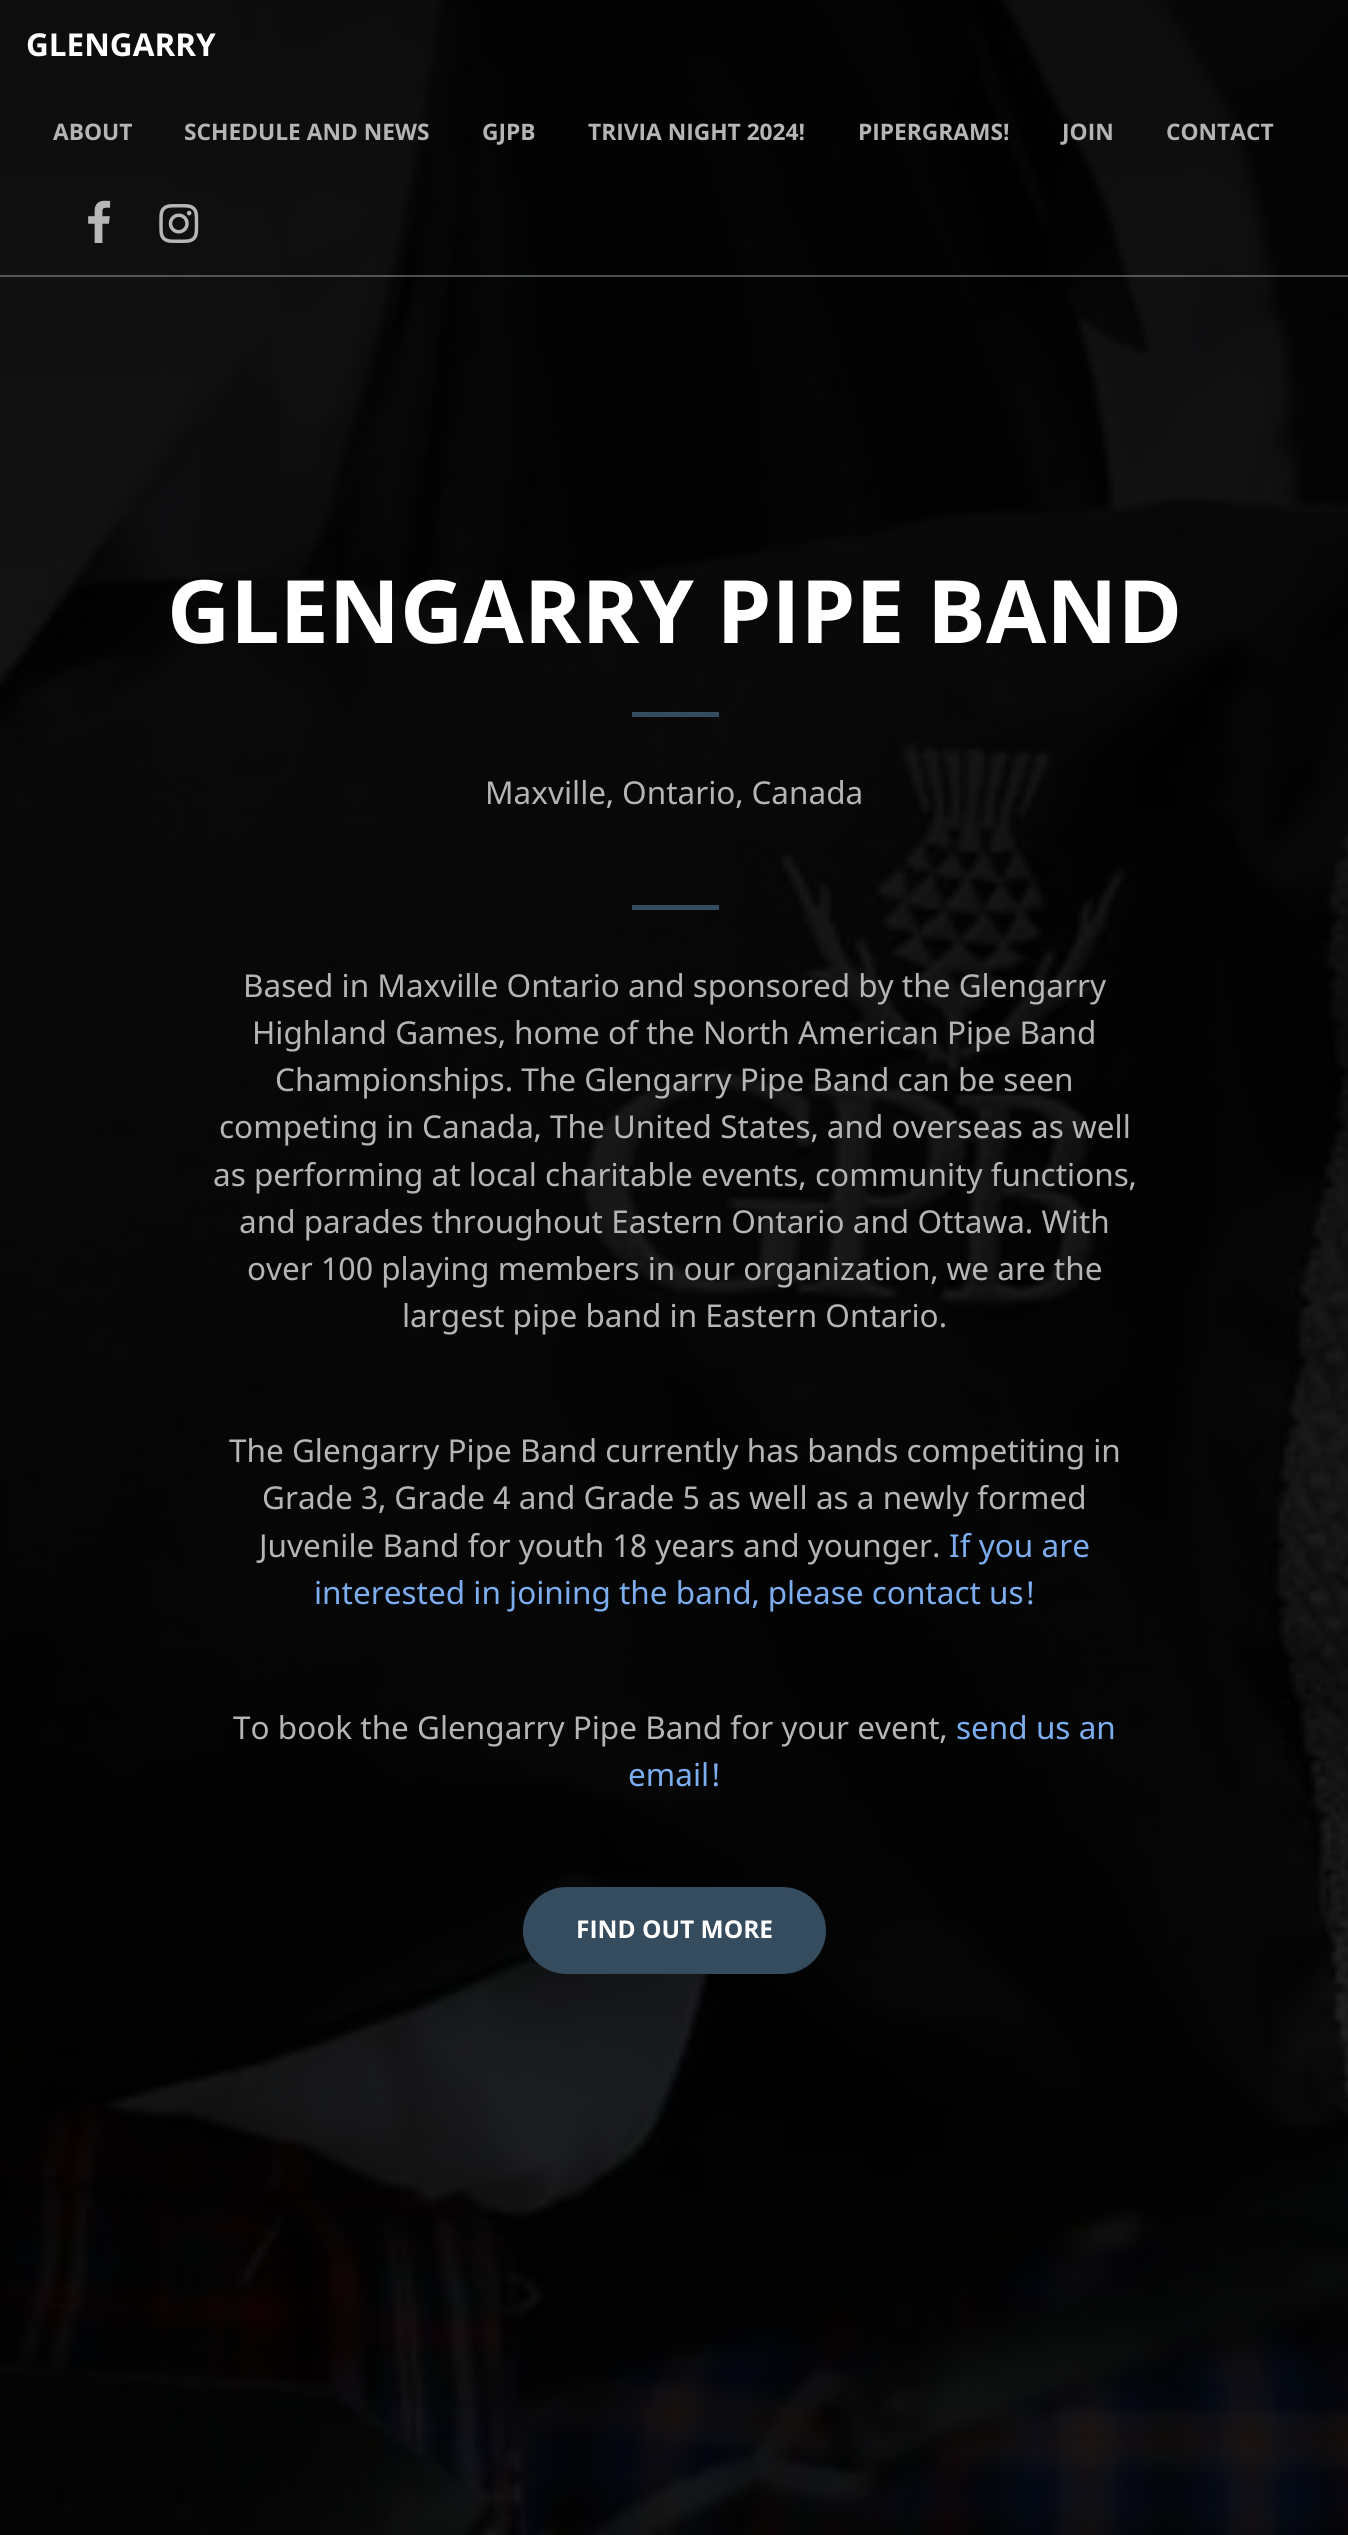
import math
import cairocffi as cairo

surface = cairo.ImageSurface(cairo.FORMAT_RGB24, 1348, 2535)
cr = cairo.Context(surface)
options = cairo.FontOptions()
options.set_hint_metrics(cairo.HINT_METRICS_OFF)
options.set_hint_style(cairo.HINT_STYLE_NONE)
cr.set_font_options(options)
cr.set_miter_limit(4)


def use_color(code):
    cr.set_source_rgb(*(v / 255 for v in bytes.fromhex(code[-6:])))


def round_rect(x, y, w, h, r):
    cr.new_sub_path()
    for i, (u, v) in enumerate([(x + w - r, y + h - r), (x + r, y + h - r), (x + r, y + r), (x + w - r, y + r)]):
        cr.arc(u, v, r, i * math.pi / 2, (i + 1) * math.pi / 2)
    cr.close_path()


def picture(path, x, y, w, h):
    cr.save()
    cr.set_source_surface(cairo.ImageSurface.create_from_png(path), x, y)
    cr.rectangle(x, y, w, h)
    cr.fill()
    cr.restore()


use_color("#ffffff")
cr.paint()
picture("img3.png", 0, 0, 1348, 2535)
cr.set_source_rgba(1, 1, 1, 0.3)
cr.rectangle(0, 275, 1348, 2)
cr.fill()
cr.select_font_face("Open Sans", cairo.FONT_SLANT_NORMAL, cairo.FONT_WEIGHT_BOLD)
cr.set_font_size(31.5)
use_color("#ffffff")
cr.move_to(26, 56)
cr.show_text("GLENGARRY")
cr.set_font_size(22.75)
use_color("#b5b5b5")
cr.move_to(53, 140)
cr.show_text("ABOUT")
cr.move_to(184, 140)
cr.show_text("SCHEDULE AND NEWS")
cr.move_to(482, 140)
cr.show_text("GJPB")
cr.move_to(588, 140)
cr.show_text("TRIVIA NIGHT 2024!")
cr.move_to(858, 140)
cr.show_text("PIPERGRAMS!")
cr.move_to(1062, 140)
cr.show_text("JOIN")
cr.move_to(1166, 140)
cr.show_text("CONTACT")
picture("img1.png", 88, 200, 23, 43)
picture("img2.png", 159, 204, 40, 39)
cr.set_font_size(87.5)
use_color("#ffffff")
cr.move_to(167, 643)
cr.show_text("GLENGARRY PIPE BAND")
use_color("#354b5e")
cr.rectangle(632, 712, 87, 5)
cr.fill()
cr.select_font_face("Noto Sans")
cr.set_font_size(31.5)
use_color("#b5b5b5")
cr.move_to(485, 804)
cr.show_text("Maxville, Ontario, Canada")
use_color("#354b5e")
cr.rectangle(632, 905, 87, 5)
cr.fill()
use_color("#b5b5b5")
cr.move_to(243, 997)
cr.show_text("Based in Maxville Ontario and sponsored by the Glengarry")
cr.move_to(252, 1044)
cr.show_text("Highland Games, home of the North American Pipe Band")
cr.move_to(275, 1091)
cr.show_text("Championships. The Glengarry Pipe Band can be seen")
cr.move_to(219, 1138)
cr.show_text("competing in Canada, The United States, and overseas as well")
cr.move_to(213, 1186)
cr.show_text("as performing at local charitable events,")
cr.move_to(815, 1186)
cr.show_text("community functions,")
cr.move_to(239, 1233)
cr.show_text("and parades throughout Eastern Ontario and Ottawa. With")
cr.move_to(247, 1280)
cr.show_text("over 100 playing members in our organization, we are the")
cr.move_to(402, 1327)
cr.show_text("largest pipe band in Eastern Ontario.")
cr.move_to(229, 1462)
cr.show_text("The Glengarry Pipe Band currently has bands competiting in")
cr.move_to(262, 1509)
cr.show_text("Grade 3, Grade 4 and Grade 5 as well as a newly formed")
cr.move_to(259, 1557)
cr.show_text("Juvenile Band for youth 18 years and younger.")
use_color("#7caeef")
cr.move_to(949, 1557)
cr.show_text("If you are")
cr.move_to(314, 1604)
cr.show_text("interested in joining the band, please contact us!")
use_color("#b5b5b5")
cr.move_to(233, 1739)
cr.show_text("To book the Glengarry Pipe Band for your event,")
use_color("#7caeef")
cr.move_to(956, 1739)
cr.show_text("send us an")
cr.move_to(628, 1786)
cr.show_text("email!")
use_color("#354b5e")
round_rect(523, 1887, 303, 87, 43.5)
cr.fill()
cr.select_font_face("Open Sans", cairo.FONT_SLANT_NORMAL, cairo.FONT_WEIGHT_BOLD)
cr.set_font_size(24.5)
use_color("#ffffff")
cr.move_to(576, 1938)
cr.show_text("FIND OUT MORE")
surface.write_to_png("result.png")
